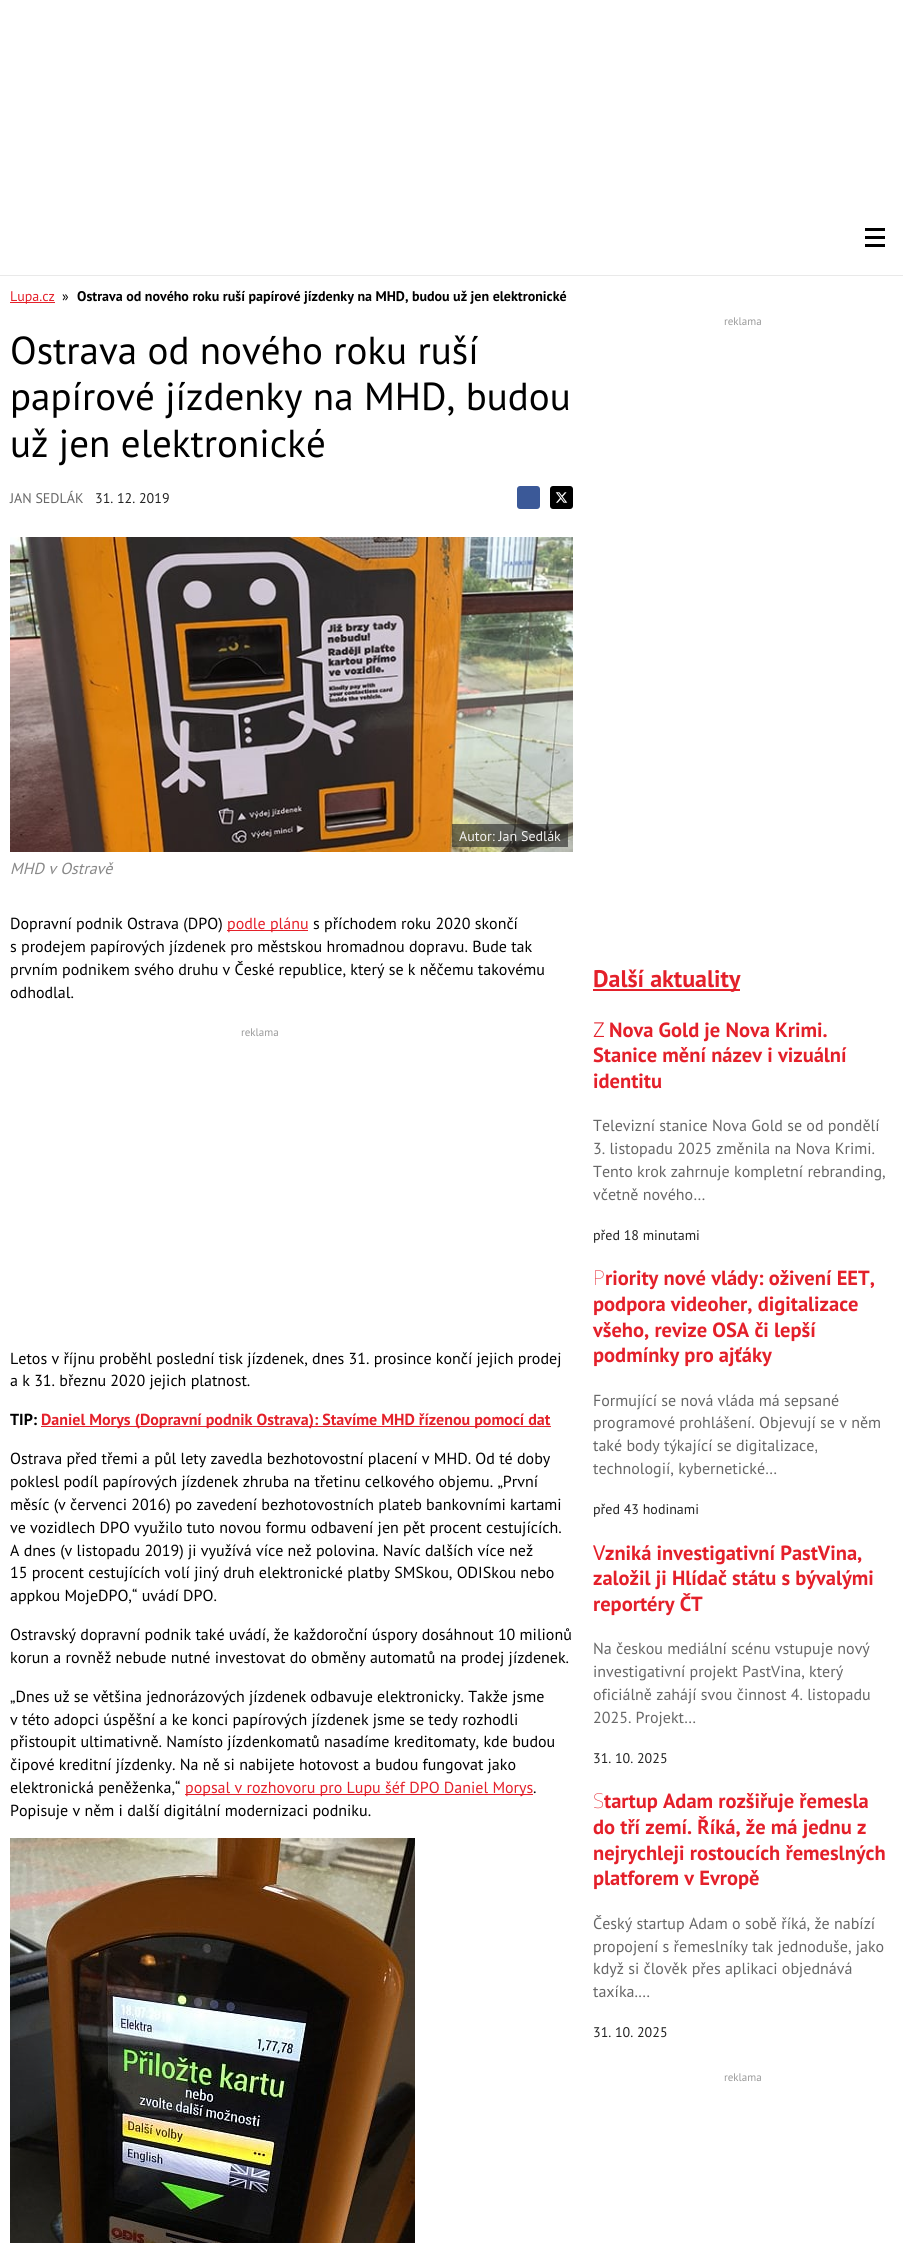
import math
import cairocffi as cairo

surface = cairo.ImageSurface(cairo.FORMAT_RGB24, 903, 2243)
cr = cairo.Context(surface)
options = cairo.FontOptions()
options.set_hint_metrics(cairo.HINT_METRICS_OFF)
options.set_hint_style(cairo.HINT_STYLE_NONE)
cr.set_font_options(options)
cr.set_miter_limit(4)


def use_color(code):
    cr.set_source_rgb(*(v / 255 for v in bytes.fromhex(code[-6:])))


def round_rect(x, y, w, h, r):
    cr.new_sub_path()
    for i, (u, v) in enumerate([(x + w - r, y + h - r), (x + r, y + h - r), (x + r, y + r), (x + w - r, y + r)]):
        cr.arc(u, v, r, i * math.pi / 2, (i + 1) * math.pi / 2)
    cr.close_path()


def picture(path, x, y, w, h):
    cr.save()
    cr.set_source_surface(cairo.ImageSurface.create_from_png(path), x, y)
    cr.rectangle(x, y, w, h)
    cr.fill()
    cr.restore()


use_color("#ffffff")
cr.paint()
use_color("#e9e9e9")
cr.rectangle(0, 275, 903, 1)
cr.fill()
use_color("#000000")
cr.rectangle(865, 236, 20, 3)
cr.fill()
cr.rectangle(865, 228, 20, 3)
cr.fill()
cr.rectangle(865, 244, 20, 3)
cr.fill()
use_color("#e4202a")
cr.rectangle(10, 302, 45, 1)
cr.fill()
cr.select_font_face("PT Sans")
cr.set_font_size(14)
cr.move_to(10, 301)
cr.show_text("Lupa.cz")
use_color("#000000")
cr.move_to(62, 301)
cr.show_text("»")
cr.select_font_face("PT Sans", cairo.FONT_SLANT_NORMAL, cairo.FONT_WEIGHT_BOLD)
cr.move_to(77, 301)
cr.show_text("Ostrava od nového roku ruší papírové jízdenky na MHD, budou už jen elektronické")
cr.select_font_face("PT Sans")
cr.set_font_size(39)
cr.move_to(10, 364)
cr.show_text("Ostrava od nového roku ruší")
cr.move_to(10, 410)
cr.show_text("papírové jízdenky na MHD, budou")
cr.move_to(10, 457)
cr.show_text("už jen elektronické")
cr.set_font_size(14)
use_color("#666666")
cr.move_to(10, 503)
cr.show_text("JAN SEDLÁK")
use_color("#222222")
cr.move_to(95, 503)
cr.show_text("31. 12. 2019")
use_color("#3b5998")
round_rect(517, 486, 23, 23, 3)
cr.fill()
use_color("#000000")
round_rect(550, 486, 23, 23, 3)
cr.fill()
picture("img1.png", 555, 492, 13, 11)
picture("img2.png", 10, 537, 563, 315)
cr.set_source_rgba(0.133, 0.133, 0.133, 0.6)
cr.rectangle(452, 824, 116, 23)
cr.fill()
use_color("#f2f2f2")
cr.move_to(459, 841)
cr.show_text("Autor: Jan Sedlák")
cr.select_font_face("PT Sans", cairo.FONT_SLANT_ITALIC)
cr.set_font_size(16)
use_color("#888888")
cr.move_to(10, 874)
cr.show_text("MHD v Ostravě")
cr.select_font_face("PT Sans")
use_color("#000000")
cr.move_to(10, 929)
cr.show_text("Dopravní podnik Ostrava (DPO)")
use_color("#e4202a")
cr.rectangle(227, 930, 81, 1)
cr.fill()
cr.move_to(227, 929)
cr.show_text("podle plánu")
use_color("#000000")
cr.move_to(313, 929)
cr.show_text("s příchodem roku 2020 skončí")
cr.move_to(10, 952)
cr.show_text("s prodejem papírových jízdenek pro městskou hromadnou dopravu. Bude tak")
cr.move_to(10, 975)
cr.show_text("prvním podnikem svého druhu v České republice, který se k něčemu takovému")
cr.move_to(10, 998)
cr.show_text("odhodlal.")
cr.set_font_size(11)
use_color("#999999")
cr.move_to(241, 1036)
cr.show_text("reklama")
cr.set_font_size(16)
use_color("#000000")
cr.move_to(10, 1364)
cr.show_text("Letos v říjnu proběhl poslední tisk jízdenek, dnes 31. prosince končí jejich prodej")
cr.move_to(10, 1386)
cr.show_text("a k 31. březnu 2020 jejich platnost.")
cr.select_font_face("PT Sans", cairo.FONT_SLANT_NORMAL, cairo.FONT_WEIGHT_BOLD)
cr.move_to(10, 1425)
cr.show_text("TIP:")
use_color("#e4202a")
cr.rectangle(41, 1426, 510, 1)
cr.fill()
cr.move_to(41, 1425)
cr.show_text("Daniel Morys (Dopravní podnik Ostrava): Stavíme MHD řízenou pomocí dat")
cr.select_font_face("PT Sans")
use_color("#000000")
cr.move_to(10, 1464)
cr.show_text("Ostrava před třemi a půl lety zavedla bezhotovostní placení v MHD. Od té doby")
cr.move_to(10, 1487)
cr.show_text("poklesl podíl papírových jízdenek zhruba na třetinu celkového objemu. „První")
cr.move_to(10, 1510)
cr.show_text("měsíc (v červenci 2016) po zavedení bezhotovostních plateb bankovními kartami")
cr.move_to(10, 1533)
cr.show_text("ve vozidlech DPO využilo tuto novou formu odbavení jen pět procent cestujících.")
cr.move_to(10, 1556)
cr.show_text("A dnes (v listopadu 2019) ji využívá více než polovina. Navíc dalších více než")
cr.move_to(10, 1578)
cr.show_text("15 procent cestujících volí jiný druh elektronické platby SMSkou, ODISkou nebo")
cr.move_to(10, 1601)
cr.show_text("appkou MojeDPO,“ uvádí DPO.")
cr.move_to(10, 1640)
cr.show_text("Ostravský dopravní podnik také uvádí, že každoroční úspory dosáhnout 10 milionů")
cr.move_to(10, 1663)
cr.show_text("korun a rovněž nebude nutné investovat do obměny automatů na prodej jízdenek.")
cr.move_to(10, 1702)
cr.show_text("„Dnes už se většina jednorázových jízdenek odbavuje elektronicky. Takže jsme")
cr.move_to(10, 1725)
cr.show_text("v této adopci úspěšní a ke konci papírových jízdenek jsme se tedy rozhodli")
cr.move_to(10, 1747)
cr.show_text("přistoupit ultimativně. Namísto jízdenkomatů nasadíme kreditomaty, kde budou")
cr.move_to(10, 1770)
cr.show_text("čipové kreditní jízdenky. Na ně si nabijete hotovost a budou fungovat jako")
cr.move_to(10, 1793)
cr.show_text("elektronická peněženka,“")
use_color("#e4202a")
cr.rectangle(185, 1794, 348, 1)
cr.fill()
cr.move_to(185, 1793)
cr.show_text("popsal v rozhovoru pro Lupu šéf DPO Daniel Morys")
use_color("#000000")
cr.move_to(533, 1793)
cr.show_text(".")
cr.move_to(10, 1816)
cr.show_text("Popisuje v něm i další digitální modernizaci podniku.")
picture("img3.png", 10, 1838, 405, 405)
cr.set_font_size(11)
use_color("#999999")
cr.move_to(724, 325)
cr.show_text("reklama")
use_color("#e4202a")
cr.rectangle(593, 989, 147, 2)
cr.fill()
cr.select_font_face("PT Sans", cairo.FONT_SLANT_NORMAL, cairo.FONT_WEIGHT_BOLD)
cr.set_font_size(24)
cr.move_to(593, 987)
cr.show_text("Další aktuality")
cr.select_font_face("Noto Sans Light")
cr.set_font_size(20.5)
cr.move_to(593, 1037)
cr.show_text("Z")
cr.select_font_face("PT Sans", cairo.FONT_SLANT_NORMAL, cairo.FONT_WEIGHT_BOLD)
cr.move_to(609, 1037)
cr.show_text("Nova Gold je Nova Krimi.")
cr.move_to(593, 1062)
cr.show_text("Stanice mění název i vizuální")
cr.move_to(593, 1088)
cr.show_text("identitu")
cr.select_font_face("PT Sans")
cr.set_font_size(16)
use_color("#666666")
cr.move_to(593, 1131)
cr.show_text("Televizní stanice Nova Gold se od pondělí")
cr.move_to(593, 1154)
cr.show_text("3. listopadu 2025 změnila na Nova Krimi.")
cr.move_to(593, 1177)
cr.show_text("Tento krok zahrnuje kompletní rebranding,")
cr.move_to(593, 1200)
cr.show_text("včetně nového…")
cr.set_font_size(14)
use_color("#222222")
cr.move_to(593, 1240)
cr.show_text("před 18 minutami")
cr.select_font_face("Noto Sans Thin")
cr.set_font_size(20.5)
use_color("#e4202a")
cr.move_to(593, 1285)
cr.show_text("P")
cr.select_font_face("PT Sans", cairo.FONT_SLANT_NORMAL, cairo.FONT_WEIGHT_BOLD)
cr.move_to(605, 1285)
cr.show_text("riority nové vlády: oživení EET,")
cr.move_to(593, 1311)
cr.show_text("podpora videoher, digitalizace")
cr.move_to(593, 1337)
cr.show_text("všeho, revize OSA či lepší")
cr.move_to(593, 1362)
cr.show_text("podmínky pro ajťáky")
cr.select_font_face("PT Sans")
cr.set_font_size(16)
use_color("#666666")
cr.move_to(593, 1406)
cr.show_text("Formující se nová vláda má sepsané")
cr.move_to(593, 1428)
cr.show_text("programové prohlášení. Objevují se v něm")
cr.move_to(593, 1451)
cr.show_text("také body týkající se digitalizace,")
cr.move_to(593, 1474)
cr.show_text("technologií, kybernetické…")
cr.set_font_size(14)
use_color("#222222")
cr.move_to(593, 1514)
cr.show_text("před 43 hodinami")
cr.select_font_face("Noto Sans")
cr.set_font_size(20.5)
use_color("#e4202a")
cr.move_to(593, 1560)
cr.show_text("V")
cr.select_font_face("PT Sans", cairo.FONT_SLANT_NORMAL, cairo.FONT_WEIGHT_BOLD)
cr.move_to(605, 1560)
cr.show_text("zniká investigativní PastVina,")
cr.move_to(593, 1585)
cr.show_text("založil ji Hlídač státu s bývalými")
cr.move_to(593, 1611)
cr.show_text("reportéry ČT")
cr.select_font_face("PT Sans")
cr.set_font_size(16)
use_color("#666666")
cr.move_to(593, 1654)
cr.show_text("Na českou mediální scénu vstupuje nový")
cr.move_to(593, 1677)
cr.show_text("investigativní projekt PastVina, který")
cr.move_to(593, 1700)
cr.show_text("oficiálně zahájí svou činnost 4. listopadu")
cr.move_to(593, 1723)
cr.show_text("2025. Projekt…")
cr.set_font_size(14)
use_color("#222222")
cr.move_to(593, 1763)
cr.show_text("31. 10. 2025")
cr.select_font_face("Noto Sans Thin")
cr.set_font_size(20.5)
use_color("#e4202a")
cr.move_to(593, 1808)
cr.show_text("S")
cr.select_font_face("PT Sans", cairo.FONT_SLANT_NORMAL, cairo.FONT_WEIGHT_BOLD)
cr.move_to(604, 1808)
cr.show_text("tartup Adam rozšiřuje řemesla")
cr.move_to(593, 1834)
cr.show_text("do tří zemí. Říká, že má jednu z")
cr.move_to(593, 1860)
cr.show_text("nejrychleji rostoucích řemeslných")
cr.move_to(593, 1885)
cr.show_text("platforem v Evropě")
cr.select_font_face("PT Sans")
cr.set_font_size(16)
use_color("#666666")
cr.move_to(593, 1929)
cr.show_text("Český startup Adam o sobě říká, že nabízí")
cr.move_to(593, 1952)
cr.show_text("propojení s řemeslníky tak jednoduše, jako")
cr.move_to(593, 1974)
cr.show_text("když si člověk přes aplikaci objednává")
cr.move_to(593, 1997)
cr.show_text("taxíka.…")
cr.set_font_size(14)
use_color("#222222")
cr.move_to(593, 2037)
cr.show_text("31. 10. 2025")
cr.set_font_size(11)
use_color("#999999")
cr.move_to(724, 2081)
cr.show_text("reklama")
surface.write_to_png("result.png")
